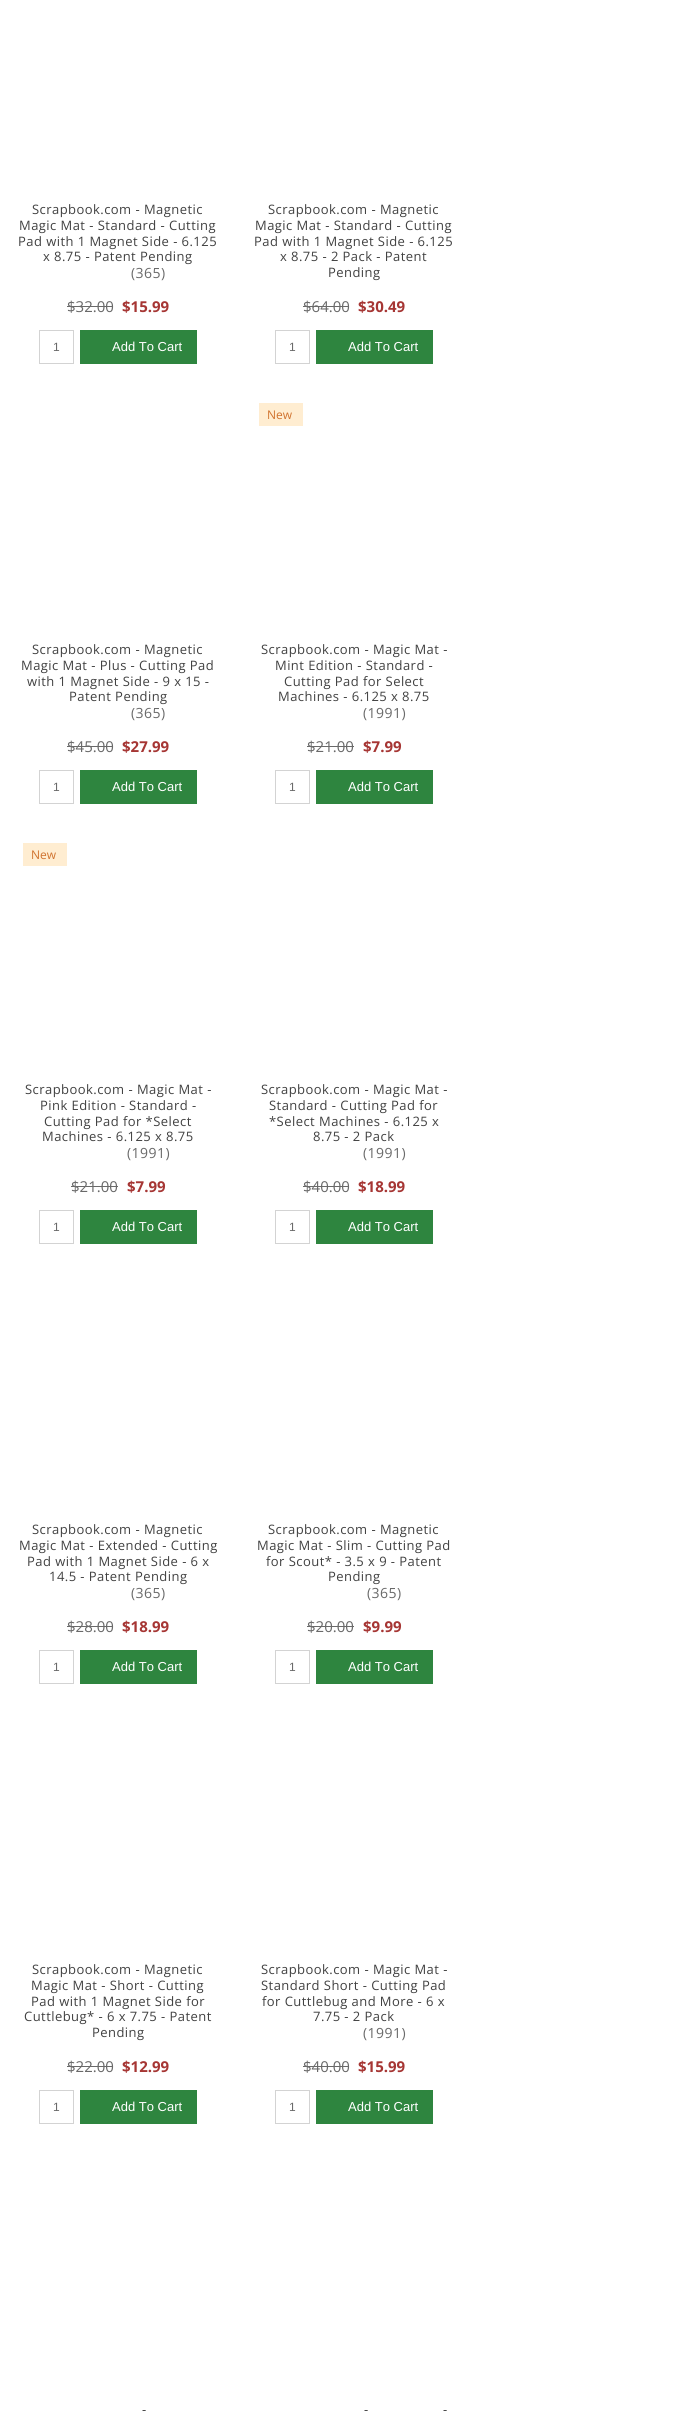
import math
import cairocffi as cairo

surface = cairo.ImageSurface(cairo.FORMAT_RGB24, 694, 2411)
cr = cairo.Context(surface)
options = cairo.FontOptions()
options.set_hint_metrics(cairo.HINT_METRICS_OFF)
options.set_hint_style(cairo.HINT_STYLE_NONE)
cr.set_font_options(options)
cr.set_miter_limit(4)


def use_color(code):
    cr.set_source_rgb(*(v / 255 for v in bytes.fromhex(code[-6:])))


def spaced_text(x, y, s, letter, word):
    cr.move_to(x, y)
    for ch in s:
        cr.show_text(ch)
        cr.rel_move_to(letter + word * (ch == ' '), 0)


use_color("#ffffff")
cr.paint()
cr.select_font_face("Open Sans")
cr.set_font_size(13)
use_color("#414141")
spaced_text(32, 214, "Scrapbook.com - Magnetic", 0.45, 0)
spaced_text(19, 230, "Magic Mat - Standard - Cutting", 0.45, 0)
spaced_text(18, 246, "Pad with 1 Magnet Side - 6.125", 0.45, 0)
spaced_text(43, 261, "x 8.75 - Patent Pending", 0.45, 0)
cr.set_font_size(14)
use_color("#696969")
spaced_text(131, 278, "(365)", 0.45, 0)
cr.set_font_size(15)
cr.move_to(67, 312)
cr.show_text("$32.00")
cr.rectangle(67, 306, 46, 1)
cr.fill()
cr.select_font_face("Open Sans", cairo.FONT_SLANT_NORMAL, cairo.FONT_WEIGHT_BOLD)
use_color("#a63634")
cr.move_to(122, 312)
cr.show_text("$15.99")
cr.rectangle(39.5, 330.5, 34, 33)
use_color("#d3d3d3")
cr.set_line_width(1)
cr.stroke()
cr.select_font_face("Liberation Sans")
cr.set_font_size(12)
use_color("#696969")
cr.move_to(53, 351)
cr.show_text("1")
use_color("#2e853f")
cr.rectangle(80, 330, 117, 34)
cr.fill()
cr.set_font_size(13)
use_color("#ffffff")
cr.move_to(112, 351)
cr.show_text("Add To Cart")
cr.select_font_face("Open Sans")
use_color("#414141")
spaced_text(268, 214, "Scrapbook.com - Magnetic", 0.45, 0)
spaced_text(255, 230, "Magic Mat - Standard - Cutting", 0.45, 0)
spaced_text(254, 246, "Pad with 1 Magnet Side - 6.125", 0.45, 0)
spaced_text(280, 261, "x 8.75 - 2 Pack - Patent", 0.45, 0)
spaced_text(328, 277, "Pending", 0.45, 0)
cr.set_font_size(15)
use_color("#696969")
cr.move_to(303, 312)
cr.show_text("$64.00")
cr.rectangle(303, 306, 46, 1)
cr.fill()
cr.select_font_face("Open Sans", cairo.FONT_SLANT_NORMAL, cairo.FONT_WEIGHT_BOLD)
use_color("#a63634")
cr.move_to(358, 312)
cr.show_text("$30.49")
cr.rectangle(275.5, 330.5, 34, 33)
use_color("#d3d3d3")
cr.stroke()
cr.select_font_face("Liberation Sans")
cr.set_font_size(12)
use_color("#696969")
cr.move_to(289, 351)
cr.show_text("1")
use_color("#2e853f")
cr.rectangle(316, 330, 117, 34)
cr.fill()
cr.set_font_size(13)
use_color("#ffffff")
cr.move_to(348, 351)
cr.show_text("Add To Cart")
cr.select_font_face("Open Sans")
use_color("#414141")
spaced_text(32, 654, "Scrapbook.com - Magnetic", 0.45, 0)
spaced_text(21, 670, "Magic Mat - Plus - Cutting Pad", 0.45, 0)
spaced_text(27, 686, "with 1 Magnet Side - 9 x 15 -", 0.45, 0)
spaced_text(69, 701, "Patent Pending", 0.45, 0)
cr.set_font_size(14)
use_color("#696969")
spaced_text(131, 718, "(365)", 0.45, 0)
cr.set_font_size(15)
cr.move_to(67, 752)
cr.show_text("$45.00")
cr.rectangle(67, 746, 46, 1)
cr.fill()
cr.select_font_face("Open Sans", cairo.FONT_SLANT_NORMAL, cairo.FONT_WEIGHT_BOLD)
use_color("#a63634")
cr.move_to(122, 752)
cr.show_text("$27.99")
cr.rectangle(39.5, 770.5, 34, 33)
use_color("#d3d3d3")
cr.stroke()
cr.select_font_face("Liberation Sans")
cr.set_font_size(12)
use_color("#696969")
cr.move_to(53, 791)
cr.show_text("1")
use_color("#2e853f")
cr.rectangle(80, 770, 117, 34)
cr.fill()
cr.set_font_size(13)
use_color("#ffffff")
cr.move_to(112, 791)
cr.show_text("Add To Cart")
use_color("#ffedd1")
cr.rectangle(259, 403, 44, 23)
cr.fill()
cr.select_font_face("Open Sans")
cr.set_font_size(12)
use_color("#d0732f")
cr.move_to(267, 419)
cr.show_text("New")
cr.set_font_size(13)
use_color("#414141")
spaced_text(261, 654, "Scrapbook.com - Magic Mat -", 0.45, 0)
spaced_text(275, 670, "Mint Edition - Standard -", 0.45, 0)
spaced_text(284, 686, "Cutting Pad for Select", 0.45, 0)
spaced_text(278, 701, "Machines - 6.125 x 8.75", 0.45, 0)
cr.set_font_size(14)
use_color("#696969")
spaced_text(363, 718, "(1991)", 0.45, 0)
cr.set_font_size(15)
cr.move_to(307, 752)
cr.show_text("$21.00")
cr.rectangle(307, 746, 47, 1)
cr.fill()
cr.select_font_face("Open Sans", cairo.FONT_SLANT_NORMAL, cairo.FONT_WEIGHT_BOLD)
use_color("#a63634")
cr.move_to(363, 752)
cr.show_text("$7.99")
cr.rectangle(275.5, 770.5, 34, 33)
use_color("#d3d3d3")
cr.stroke()
cr.select_font_face("Liberation Sans")
cr.set_font_size(12)
use_color("#696969")
cr.move_to(289, 791)
cr.show_text("1")
use_color("#2e853f")
cr.rectangle(316, 770, 117, 34)
cr.fill()
cr.set_font_size(13)
use_color("#ffffff")
cr.move_to(348, 791)
cr.show_text("Add To Cart")
use_color("#ffedd1")
cr.rectangle(23, 843, 44, 23)
cr.fill()
cr.select_font_face("Open Sans")
cr.set_font_size(12)
use_color("#d0732f")
cr.move_to(31, 859)
cr.show_text("New")
cr.set_font_size(13)
use_color("#414141")
spaced_text(25, 1094, "Scrapbook.com - Magic Mat -", 0.45, 0)
spaced_text(40, 1110, "Pink Edition - Standard -", 0.45, 0)
spaced_text(44, 1126, "Cutting Pad for *Select", 0.45, 0)
spaced_text(42, 1141, "Machines - 6.125 x 8.75", 0.45, 0)
cr.set_font_size(14)
use_color("#696969")
spaced_text(127, 1158, "(1991)", 0.45, 0)
cr.set_font_size(15)
cr.move_to(71, 1192)
cr.show_text("$21.00")
cr.rectangle(71, 1186, 47, 1)
cr.fill()
cr.select_font_face("Open Sans", cairo.FONT_SLANT_NORMAL, cairo.FONT_WEIGHT_BOLD)
use_color("#a63634")
cr.move_to(127, 1192)
cr.show_text("$7.99")
cr.rectangle(39.5, 1210.5, 34, 33)
use_color("#d3d3d3")
cr.stroke()
cr.select_font_face("Liberation Sans")
cr.set_font_size(12)
use_color("#696969")
cr.move_to(53, 1231)
cr.show_text("1")
use_color("#2e853f")
cr.rectangle(80, 1210, 117, 34)
cr.fill()
cr.set_font_size(13)
use_color("#ffffff")
cr.move_to(112, 1231)
cr.show_text("Add To Cart")
cr.select_font_face("Open Sans")
use_color("#414141")
spaced_text(261, 1094, "Scrapbook.com - Magic Mat -", 0.45, 0)
spaced_text(269, 1110, "Standard - Cutting Pad for", 0.45, 0)
spaced_text(269, 1126, "*Select Machines - 6.125 x", 0.45, 0)
spaced_text(313, 1141, "8.75 - 2 Pack", 0.45, 0)
cr.set_font_size(14)
use_color("#696969")
spaced_text(363, 1158, "(1991)", 0.45, 0)
cr.set_font_size(15)
cr.move_to(303, 1192)
cr.show_text("$40.00")
cr.rectangle(303, 1186, 46, 1)
cr.fill()
cr.select_font_face("Open Sans", cairo.FONT_SLANT_NORMAL, cairo.FONT_WEIGHT_BOLD)
use_color("#a63634")
cr.move_to(358, 1192)
cr.show_text("$18.99")
cr.rectangle(275.5, 1210.5, 34, 33)
use_color("#d3d3d3")
cr.stroke()
cr.select_font_face("Liberation Sans")
cr.set_font_size(12)
use_color("#696969")
cr.move_to(289, 1231)
cr.show_text("1")
use_color("#2e853f")
cr.rectangle(316, 1210, 117, 34)
cr.fill()
cr.set_font_size(13)
use_color("#ffffff")
cr.move_to(348, 1231)
cr.show_text("Add To Cart")
cr.select_font_face("Open Sans")
use_color("#414141")
spaced_text(32, 1534, "Scrapbook.com - Magnetic", 0.45, 0)
spaced_text(19, 1550, "Magic Mat - Extended - Cutting", 0.45, 0)
spaced_text(27, 1566, "Pad with 1 Magnet Side - 6 x", 0.45, 0)
spaced_text(49, 1581, "14.5 - Patent Pending", 0.45, 0)
cr.set_font_size(14)
use_color("#696969")
spaced_text(131, 1598, "(365)", 0.45, 0)
cr.set_font_size(15)
cr.move_to(67, 1632)
cr.show_text("$28.00")
cr.rectangle(67, 1626, 46, 1)
cr.fill()
cr.select_font_face("Open Sans", cairo.FONT_SLANT_NORMAL, cairo.FONT_WEIGHT_BOLD)
use_color("#a63634")
cr.move_to(122, 1632)
cr.show_text("$18.99")
cr.rectangle(39.5, 1650.5, 34, 33)
use_color("#d3d3d3")
cr.stroke()
cr.select_font_face("Liberation Sans")
cr.set_font_size(12)
use_color("#696969")
cr.move_to(53, 1671)
cr.show_text("1")
use_color("#2e853f")
cr.rectangle(80, 1650, 117, 34)
cr.fill()
cr.set_font_size(13)
use_color("#ffffff")
cr.move_to(112, 1671)
cr.show_text("Add To Cart")
cr.select_font_face("Open Sans")
use_color("#414141")
spaced_text(268, 1534, "Scrapbook.com - Magnetic", 0.45, 0)
spaced_text(257, 1550, "Magic Mat - Slim - Cutting Pad", 0.45, 0)
spaced_text(266, 1566, "for Scout* - 3.5 x 9 - Patent", 0.45, 0)
spaced_text(328, 1581, "Pending", 0.45, 0)
cr.set_font_size(14)
use_color("#696969")
spaced_text(367, 1598, "(365)", 0.45, 0)
cr.set_font_size(15)
cr.move_to(307, 1632)
cr.show_text("$20.00")
cr.rectangle(307, 1626, 47, 1)
cr.fill()
cr.select_font_face("Open Sans", cairo.FONT_SLANT_NORMAL, cairo.FONT_WEIGHT_BOLD)
use_color("#a63634")
cr.move_to(363, 1632)
cr.show_text("$9.99")
cr.rectangle(275.5, 1650.5, 34, 33)
use_color("#d3d3d3")
cr.stroke()
cr.select_font_face("Liberation Sans")
cr.set_font_size(12)
use_color("#696969")
cr.move_to(289, 1671)
cr.show_text("1")
use_color("#2e853f")
cr.rectangle(316, 1650, 117, 34)
cr.fill()
cr.set_font_size(13)
use_color("#ffffff")
cr.move_to(348, 1671)
cr.show_text("Add To Cart")
cr.select_font_face("Open Sans")
use_color("#414141")
spaced_text(32, 1974, "Scrapbook.com - Magnetic", 0.45, 0)
spaced_text(31, 1990, "Magic Mat - Short - Cutting", 0.45, 0)
spaced_text(31, 2006, "Pad with 1 Magnet Side for", 0.45, 0)
spaced_text(24, 2021, "Cuttlebug* - 6 x 7.75 - Patent", 0.45, 0)
spaced_text(92, 2037, "Pending", 0.45, 0)
cr.set_font_size(15)
use_color("#696969")
cr.move_to(67, 2072)
cr.show_text("$22.00")
cr.rectangle(67, 2066, 46, 1)
cr.fill()
cr.select_font_face("Open Sans", cairo.FONT_SLANT_NORMAL, cairo.FONT_WEIGHT_BOLD)
use_color("#a63634")
cr.move_to(122, 2072)
cr.show_text("$12.99")
cr.rectangle(39.5, 2090.5, 34, 33)
use_color("#d3d3d3")
cr.stroke()
cr.select_font_face("Liberation Sans")
cr.set_font_size(12)
use_color("#696969")
cr.move_to(53, 2111)
cr.show_text("1")
use_color("#2e853f")
cr.rectangle(80, 2090, 117, 34)
cr.fill()
cr.set_font_size(13)
use_color("#ffffff")
cr.move_to(112, 2111)
cr.show_text("Add To Cart")
cr.select_font_face("Open Sans")
use_color("#414141")
spaced_text(261, 1974, "Scrapbook.com - Magic Mat -", 0.45, 0)
spaced_text(261, 1990, "Standard Short - Cutting Pad", 0.45, 0)
spaced_text(262, 2006, "for Cuttlebug and More - 6 x", 0.45, 0)
spaced_text(313, 2021, "7.75 - 2 Pack", 0.45, 0)
cr.set_font_size(14)
use_color("#696969")
spaced_text(363, 2038, "(1991)", 0.45, 0)
cr.set_font_size(15)
cr.move_to(303, 2072)
cr.show_text("$40.00")
cr.rectangle(303, 2066, 46, 1)
cr.fill()
cr.select_font_face("Open Sans", cairo.FONT_SLANT_NORMAL, cairo.FONT_WEIGHT_BOLD)
use_color("#a63634")
cr.move_to(358, 2072)
cr.show_text("$15.99")
cr.rectangle(275.5, 2090.5, 34, 33)
use_color("#d3d3d3")
cr.stroke()
cr.select_font_face("Liberation Sans")
cr.set_font_size(12)
use_color("#696969")
cr.move_to(289, 2111)
cr.show_text("1")
use_color("#2e853f")
cr.rectangle(316, 2090, 117, 34)
cr.fill()
cr.set_font_size(13)
use_color("#ffffff")
cr.move_to(348, 2111)
cr.show_text("Add To Cart")
cr.select_font_face("Open Sans")
use_color("#414141")
spaced_text(142, 2414, "-", 0.45, 0)
spaced_text(364, 2414, "-", 0.45, 0)
spaced_text(443, 2414, "-", 0.45, 0)
surface.write_to_png("result.png")
